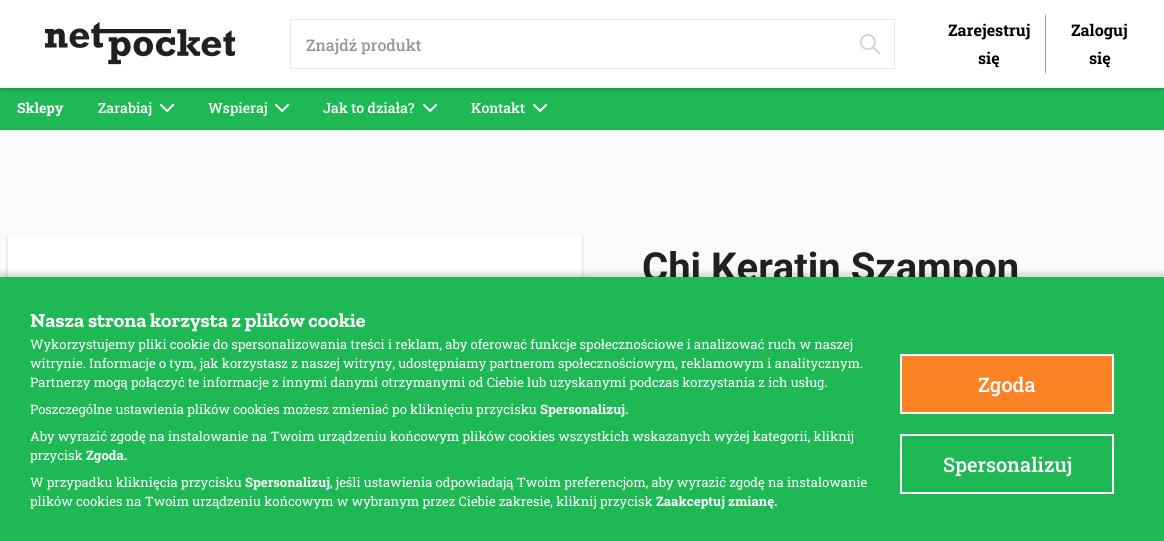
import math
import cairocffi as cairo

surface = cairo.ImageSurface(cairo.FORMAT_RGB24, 1164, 541)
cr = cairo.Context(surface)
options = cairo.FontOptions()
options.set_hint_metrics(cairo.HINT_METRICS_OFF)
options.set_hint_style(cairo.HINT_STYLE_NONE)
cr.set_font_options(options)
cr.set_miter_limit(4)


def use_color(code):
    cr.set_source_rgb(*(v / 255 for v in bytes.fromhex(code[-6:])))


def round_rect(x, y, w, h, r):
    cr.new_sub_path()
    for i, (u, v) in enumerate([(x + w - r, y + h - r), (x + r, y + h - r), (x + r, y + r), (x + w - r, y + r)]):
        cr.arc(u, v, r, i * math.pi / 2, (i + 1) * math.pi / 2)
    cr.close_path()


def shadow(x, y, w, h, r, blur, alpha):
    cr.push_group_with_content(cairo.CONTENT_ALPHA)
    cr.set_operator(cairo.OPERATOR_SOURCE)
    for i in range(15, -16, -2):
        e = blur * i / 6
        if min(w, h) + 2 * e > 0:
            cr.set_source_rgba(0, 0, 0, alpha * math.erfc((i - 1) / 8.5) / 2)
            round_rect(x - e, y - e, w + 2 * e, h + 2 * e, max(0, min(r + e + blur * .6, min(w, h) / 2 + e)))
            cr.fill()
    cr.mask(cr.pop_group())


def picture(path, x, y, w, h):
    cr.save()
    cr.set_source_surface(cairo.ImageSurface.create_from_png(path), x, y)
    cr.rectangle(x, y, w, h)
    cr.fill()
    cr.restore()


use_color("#fbfbfb")
cr.paint()
use_color("#1eb855")
cr.rectangle(0, 88, 1164, 42)
cr.fill()
use_color("#000000")
shadow(0, 2, 1164, 88, 0, 2, 0.16)
use_color("#ffffff")
cr.rectangle(0, 0, 1164, 88)
cr.fill()
picture("img1.png", 45, 22, 190, 43)
cr.rectangle(290.5, 19.5, 604, 49)
use_color("#e9e9e9")
cr.set_line_width(1)
cr.stroke()
cr.select_font_face("Roboto Slab Medium")
cr.set_font_size(16)
use_color("#989898")
cr.move_to(306, 51)
cr.show_text("Znajdź produkt")
picture("img2.png", 860, 34, 20, 21)
use_color("#a1a0a0")
cr.rectangle(1045, 15, 1, 58)
cr.fill()
cr.select_font_face("Roboto Slab", cairo.FONT_SLANT_NORMAL, cairo.FONT_WEIGHT_BOLD)
use_color("#000000")
cr.move_to(948, 36)
cr.show_text("Zarejestruj")
cr.move_to(978, 64)
cr.show_text("się")
cr.move_to(1071, 36)
cr.show_text("Zaloguj")
cr.move_to(1089, 64)
cr.show_text("się")
cr.set_font_size(14)
use_color("#ffffff")
cr.move_to(17, 113)
cr.show_text("Sklepy")
cr.select_font_face("Roboto Slab Medium")
cr.move_to(98, 113)
cr.show_text("Zarabiaj")
picture("img3.png", 160, 104, 15, 8)
cr.move_to(208, 113)
cr.show_text("Wspieraj")
picture("img3.png", 275, 104, 15, 8)
cr.move_to(323, 113)
cr.show_text("Jak to działa?")
picture("img3.png", 423, 104, 15, 8)
cr.move_to(471, 113)
cr.show_text("Kontakt")
picture("img3.png", 533, 104, 15, 8)
use_color("#000000")
shadow(8, 237, 574, 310, 0, 2, 0.16)
use_color("#ffffff")
cr.rectangle(8, 235, 574, 42)
cr.fill()
cr.select_font_face("Roboto", cairo.FONT_SLANT_NORMAL, cairo.FONT_WEIGHT_BOLD)
cr.set_font_size(40)
use_color("#231f20")
cr.move_to(642, 281)
cr.show_text("Chi Keratin Szampon")
use_color("#000000")
shadow(0, 273, 1164, 264, 0, 3, 0.16)
use_color("#1eb855")
cr.rectangle(0, 277, 1164, 264)
cr.fill()
cr.select_font_face("Zilla Slab", cairo.FONT_SLANT_NORMAL, cairo.FONT_WEIGHT_BOLD)
cr.set_font_size(20)
use_color("#ffffff")
cr.move_to(30, 327)
cr.show_text("Nasza strona korzysta z plików cookie")
cr.select_font_face("Roboto Slab")
cr.set_font_size(13)
cr.move_to(30, 349)
cr.show_text("Wykorzystujemy pliki cookie do spersonalizowania treści i reklam, aby oferować funkcje społecznościowe i analizować ruch w naszej")
cr.move_to(30, 368)
cr.show_text("witrynie. Informacje o tym, jak korzystasz z naszej witryny, udostępniamy partnerom społecznościowym, reklamowym i analitycznym.")
cr.move_to(30, 387)
cr.show_text("Partnerzy mogą połączyć te informacje z innymi danymi otrzymanymi od Ciebie lub uzyskanymi podczas korzystania z ich usług.")
cr.move_to(30, 414)
cr.show_text("Poszczególne ustawienia plików cookies możesz zmieniać po kliknięciu przycisku")
cr.select_font_face("Roboto Slab", cairo.FONT_SLANT_NORMAL, cairo.FONT_WEIGHT_BOLD)
cr.move_to(540, 414)
cr.show_text("Spersonalizuj.")
cr.select_font_face("Roboto Slab")
cr.move_to(30, 441)
cr.show_text("Aby wyrazić zgodę na instalowanie na Twoim urządzeniu końcowym plików cookies wszystkich wskazanych wyżej kategorii, kliknij")
cr.move_to(30, 460)
cr.show_text("przycisk")
cr.select_font_face("Roboto Slab", cairo.FONT_SLANT_NORMAL, cairo.FONT_WEIGHT_BOLD)
cr.move_to(86, 460)
cr.show_text("Zgoda.")
cr.select_font_face("Roboto Slab")
cr.move_to(30, 487)
cr.show_text("W przypadku kliknięcia przycisku")
cr.select_font_face("Roboto Slab", cairo.FONT_SLANT_NORMAL, cairo.FONT_WEIGHT_BOLD)
cr.move_to(245, 487)
cr.show_text("Spersonalizuj")
cr.select_font_face("Roboto Slab")
cr.move_to(330, 487)
cr.show_text(", jeśli ustawienia odpowiadają Twoim preferencjom, aby wyrazić zgodę na instalowanie")
cr.move_to(30, 506)
cr.show_text("plików cookies na Twoim urządzeniu końcowym w wybranym przez Ciebie zakresie, kliknij przycisk")
cr.select_font_face("Roboto Slab", cairo.FONT_SLANT_NORMAL, cairo.FONT_WEIGHT_BOLD)
cr.move_to(656, 506)
cr.show_text("Zaakceptuj zmianę.")
use_color("#fb8225")
cr.rectangle(901, 355, 212, 58)
cr.fill_preserve()
use_color("#ffffff")
cr.set_line_width(2)
cr.stroke()
cr.select_font_face("Roboto Slab Medium")
cr.set_font_size(20)
cr.move_to(978, 392)
cr.show_text("Zgoda")
cr.rectangle(901, 435, 212, 58)
cr.stroke()
cr.move_to(943, 472)
cr.show_text("Spersonalizuj")
surface.write_to_png("result.png")
